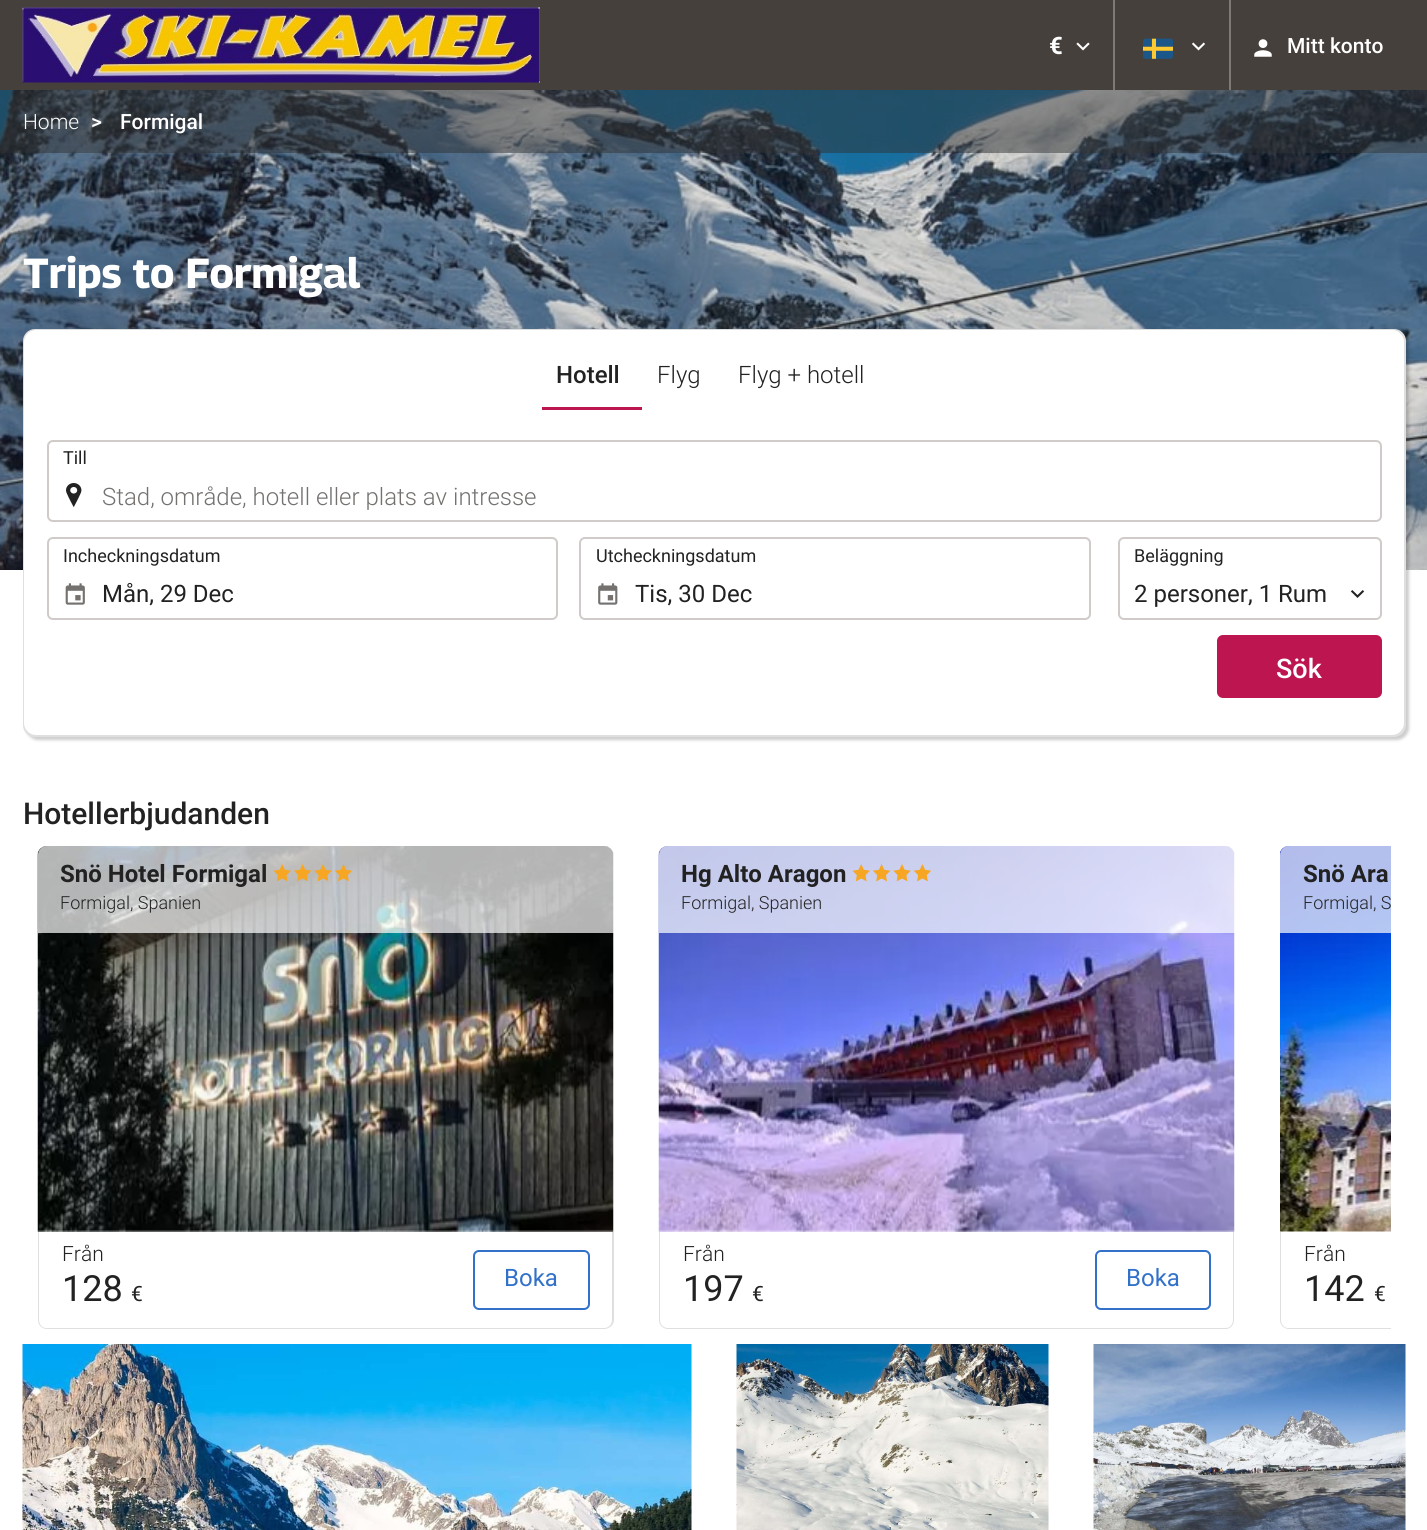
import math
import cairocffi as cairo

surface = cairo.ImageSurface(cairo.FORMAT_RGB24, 1427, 1530)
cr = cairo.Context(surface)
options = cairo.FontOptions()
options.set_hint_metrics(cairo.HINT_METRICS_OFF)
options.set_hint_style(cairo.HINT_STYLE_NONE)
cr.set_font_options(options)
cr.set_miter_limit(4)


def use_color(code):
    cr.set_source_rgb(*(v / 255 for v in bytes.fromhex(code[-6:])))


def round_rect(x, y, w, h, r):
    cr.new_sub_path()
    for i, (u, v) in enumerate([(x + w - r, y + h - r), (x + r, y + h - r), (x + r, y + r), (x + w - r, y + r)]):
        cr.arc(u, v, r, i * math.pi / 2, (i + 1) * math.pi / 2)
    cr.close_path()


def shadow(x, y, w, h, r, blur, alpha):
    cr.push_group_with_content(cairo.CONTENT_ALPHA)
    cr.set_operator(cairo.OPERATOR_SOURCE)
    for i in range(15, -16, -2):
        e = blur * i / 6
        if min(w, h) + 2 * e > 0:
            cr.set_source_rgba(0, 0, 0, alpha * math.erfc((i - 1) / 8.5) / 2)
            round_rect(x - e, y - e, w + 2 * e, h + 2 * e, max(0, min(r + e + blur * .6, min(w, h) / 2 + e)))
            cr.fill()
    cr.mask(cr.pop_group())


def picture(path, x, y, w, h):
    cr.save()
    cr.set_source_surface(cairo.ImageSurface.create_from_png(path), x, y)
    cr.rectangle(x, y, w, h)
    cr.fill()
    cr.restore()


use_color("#ffffff")
cr.paint()
use_color("#46403c")
cr.rectangle(0, 0, 1427, 90)
cr.fill()
picture("img1.png", 22, 7, 518, 76)
use_color("#7e7977")
cr.rectangle(1113, 0, 2, 90)
cr.fill()
cr.select_font_face("Roboto", cairo.FONT_SLANT_NORMAL, cairo.FONT_WEIGHT_BOLD)
cr.set_font_size(24)
use_color("#ffffff")
cr.move_to(1049, 54)
cr.show_text("€")
picture("img2.png", 1076, 42, 14, 9)
use_color("#7e7977")
cr.rectangle(1229, 0, 2, 90)
cr.fill()
picture("img3.png", 1143, 38, 30, 21)
picture("img4.png", 1192, 42, 13, 9)
picture("img5.png", 1254, 39, 18, 18)
cr.select_font_face("Roboto Medium")
cr.set_font_size(21)
use_color("#ffffff")
cr.move_to(1287, 53)
cr.show_text("Mitt konto")
picture("img6.png", 0, 90, 1427, 480)
cr.set_source_rgba(0.188, 0.196, 0.208, 0.5)
cr.rectangle(0, 90, 1427, 63)
cr.fill()
cr.select_font_face("Roboto Light")
use_color("#ffffff")
cr.move_to(23, 129)
cr.show_text("Home")
cr.select_font_face("Roboto Medium")
cr.move_to(91, 129)
cr.show_text(">")
cr.move_to(120, 129)
cr.show_text("Formigal")
cr.select_font_face("Georama", cairo.FONT_SLANT_NORMAL, cairo.FONT_WEIGHT_BOLD)
cr.set_font_size(42)
cr.move_to(23, 288)
cr.show_text("Trips to Formigal")
use_color("#000000")
shadow(26, 332, 1383, 408, 12, 1.5, 0.2)
use_color("#dfdfdf")
round_rect(23, 329, 1383, 408, 12)
cr.fill()
use_color("#ffffff")
cr.new_path()
cr.move_to(36, 330)
cr.line_to(1392, 330)
cr.curve_to(1398.5, 330, 1404, 335.5, 1404, 342)
cr.line_to(1404, 440)
cr.line_to(24, 440)
cr.line_to(24, 342)
cr.curve_to(24, 335.5, 29.5, 330, 36, 330)
cr.close_path()
cr.fill()
use_color("#bd1550")
cr.rectangle(542, 407, 100, 3)
cr.fill()
cr.select_font_face("Roboto Medium")
cr.set_font_size(24)
use_color("#222222")
cr.move_to(556, 383)
cr.show_text("Hotell")
cr.select_font_face("Roboto Light")
cr.move_to(657, 383)
cr.show_text("Flyg")
cr.move_to(738, 383)
cr.show_text("Flyg + hotell")
use_color("#ffffff")
cr.new_path()
cr.move_to(24, 440)
cr.line_to(1404, 440)
cr.line_to(1404, 723)
cr.curve_to(1404, 729.5, 1398.5, 735, 1392, 735)
cr.line_to(36, 735)
cr.curve_to(29.5, 735, 24, 729.5, 24, 723)
cr.close_path()
cr.fill()
picture("img7.png", 66, 483, 16, 24)
round_rect(48, 441, 1333, 80, 5)
use_color("#d0cbc9")
cr.stroke()
cr.select_font_face("Roboto")
cr.set_font_size(18)
use_color("#222222")
cr.move_to(63, 464)
cr.show_text("Till")
cr.select_font_face("Roboto Light")
cr.set_font_size(24)
use_color("#74716e")
cr.move_to(102, 505)
cr.show_text("Stad, område, hotell eller plats av intresse")
picture("img8.png", 65, 583, 20, 22)
round_rect(48, 538, 509, 81, 5)
use_color("#d0cbc9")
cr.stroke()
cr.select_font_face("Roboto")
cr.set_font_size(18)
use_color("#222222")
cr.move_to(63, 562)
cr.show_text("Incheckningsdatum")
cr.set_font_size(24)
cr.move_to(102, 602)
cr.show_text("Mån, 29 Dec")
picture("img9.png", 598, 583, 20, 22)
round_rect(580, 538, 510, 81, 5)
use_color("#d0cbc9")
cr.stroke()
cr.set_font_size(18)
use_color("#222222")
cr.move_to(596, 562)
cr.show_text("Utcheckningsdatum")
cr.set_font_size(24)
cr.move_to(635, 602)
cr.show_text("Tis, 30 Dec")
round_rect(1119, 538, 262, 81, 5)
use_color("#d0cbc9")
cr.stroke()
cr.set_font_size(18)
use_color("#222222")
cr.move_to(1134, 562)
cr.show_text("Beläggning")
cr.set_font_size(24)
cr.move_to(1134, 602)
cr.show_text("2 personer, 1 Rum")
picture("img10.png", 1350, 590, 15, 8)
use_color("#bd1550")
round_rect(1217, 635, 165, 63, 6)
cr.fill()
cr.select_font_face("Roboto Medium")
cr.set_font_size(27)
use_color("#ffffff")
cr.move_to(1276, 678)
cr.show_text("Sök")
cr.set_font_size(30)
use_color("#222222")
cr.move_to(23, 824)
cr.show_text("Hotellerbjudanden")
picture("img11.png", 37, 846, 577, 386)
cr.set_source_rgba(1, 1, 1, 0.7)
cr.new_path()
cr.move_to(47, 846)
cr.line_to(605, 846)
cr.curve_to(610, 846, 614, 850, 614, 855)
cr.line_to(614, 933)
cr.line_to(38, 933)
cr.line_to(38, 855)
cr.curve_to(38, 850, 42, 846, 47, 846)
cr.close_path()
cr.fill()
cr.select_font_face("Roboto", cairo.FONT_SLANT_NORMAL, cairo.FONT_WEIGHT_BOLD)
cr.set_font_size(24)
use_color("#222222")
cr.move_to(60, 882)
cr.show_text("Snö Hotel Formigal")
picture("img12.png", 273, 864, 79, 18)
cr.select_font_face("Roboto Light")
cr.set_font_size(18)
cr.move_to(60, 909)
cr.show_text("Formigal, Spanien")
use_color("#dfdfdf")
cr.new_path()
cr.move_to(39, 1232)
cr.line_to(38, 1232)
cr.line_to(38, 1320)
cr.curve_to(38, 1325, 42, 1329, 47, 1329)
cr.line_to(604, 1329)
cr.curve_to(609, 1329, 614, 1325, 614, 1320)
cr.line_to(614, 1232)
cr.line_to(612, 1232)
cr.line_to(612, 1320)
cr.curve_to(612, 1324, 609, 1328, 604, 1328)
cr.line_to(46, 1328)
cr.curve_to(42, 1328, 39, 1324, 39, 1320)
cr.close_path()
cr.fill()
cr.set_font_size(21)
use_color("#222222")
cr.move_to(62, 1261)
cr.show_text("Från")
cr.select_font_face("Roboto")
cr.set_font_size(36)
cr.move_to(62, 1301)
cr.show_text("128")
cr.set_font_size(21)
cr.move_to(131, 1301)
cr.show_text("€")
round_rect(474, 1251, 115, 58, 5)
use_color("#3171c9")
cr.stroke()
cr.set_font_size(24)
cr.move_to(504, 1286)
cr.show_text("Boka")
picture("img13.png", 658, 846, 577, 386)
cr.set_source_rgba(1, 1, 1, 0.7)
cr.new_path()
cr.move_to(668, 846)
cr.line_to(1226, 846)
cr.curve_to(1231, 846, 1235, 850, 1235, 855)
cr.line_to(1235, 933)
cr.line_to(659, 933)
cr.line_to(659, 855)
cr.curve_to(659, 850, 663, 846, 668, 846)
cr.close_path()
cr.fill()
cr.select_font_face("Roboto", cairo.FONT_SLANT_NORMAL, cairo.FONT_WEIGHT_BOLD)
use_color("#222222")
cr.move_to(681, 882)
cr.show_text("Hg Alto Aragon")
picture("img14.png", 852, 864, 79, 18)
cr.select_font_face("Roboto Light")
cr.set_font_size(18)
cr.move_to(681, 909)
cr.show_text("Formigal, Spanien")
use_color("#dfdfdf")
cr.new_path()
cr.move_to(660, 1232)
cr.line_to(660, 1320)
cr.curve_to(660, 1324, 663, 1328, 668, 1328)
cr.line_to(1226, 1328)
cr.curve_to(1230, 1328, 1233, 1324, 1233, 1320)
cr.line_to(1233, 1232)
cr.line_to(1234, 1232)
cr.line_to(1234, 1320)
cr.curve_to(1234, 1325, 1230, 1329, 1226, 1329)
cr.line_to(668, 1329)
cr.curve_to(663, 1329, 659, 1325, 659, 1320)
cr.line_to(659, 1232)
cr.close_path()
cr.fill()
cr.set_font_size(21)
use_color("#222222")
cr.move_to(683, 1261)
cr.show_text("Från")
cr.select_font_face("Roboto")
cr.set_font_size(36)
cr.move_to(683, 1301)
cr.show_text("197")
cr.set_font_size(21)
cr.move_to(752, 1301)
cr.show_text("€")
round_rect(1096, 1251, 114, 58, 5)
use_color("#3171c9")
cr.stroke()
cr.set_font_size(24)
cr.move_to(1126, 1286)
cr.show_text("Boka")
picture("img15.png", 1280, 846, 111, 386)
cr.set_source_rgba(1, 1, 1, 0.7)
cr.new_path()
cr.move_to(1289, 846)
cr.line_to(1391, 846)
cr.line_to(1391, 933)
cr.line_to(1280, 933)
cr.line_to(1280, 855)
cr.curve_to(1280, 850, 1284, 846, 1289, 846)
cr.close_path()
cr.fill()
cr.select_font_face("Roboto", cairo.FONT_SLANT_NORMAL, cairo.FONT_WEIGHT_BOLD)
use_color("#222222")
cr.move_to(1303, 882)
cr.show_text("Snö Ara")
cr.select_font_face("Roboto Light")
cr.set_font_size(18)
cr.move_to(1303, 909)
cr.show_text("Formigal, S")
cr.save()
cr.rectangle(38, 846, 1353, 483)
cr.clip()
use_color("#dfdfdf")
cr.new_path()
cr.move_to(1281, 1232)
cr.line_to(1280, 1232)
cr.line_to(1280, 1320)
cr.curve_to(1280, 1325, 1284, 1329, 1289, 1329)
cr.line_to(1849, 1329)
cr.curve_to(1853, 1329, 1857, 1325, 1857, 1321)
cr.line_to(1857, 1232)
cr.line_to(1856, 1232)
cr.line_to(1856, 1320)
cr.curve_to(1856, 1324, 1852, 1328, 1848, 1328)
cr.line_to(1288, 1328)
cr.curve_to(1284, 1328, 1281, 1324, 1281, 1320)
cr.close_path()
cr.fill()
cr.restore()
cr.set_font_size(21)
cr.move_to(1304, 1261)
cr.show_text("Från")
cr.select_font_face("Roboto")
cr.set_font_size(36)
cr.move_to(1304, 1301)
cr.show_text("142")
cr.set_font_size(21)
cr.move_to(1374, 1301)
cr.show_text("€")
picture("img16.png", 22, 1344, 670, 186)
picture("img17.png", 736, 1344, 313, 186)
picture("img18.png", 1093, 1344, 313, 186)
surface.write_to_png("result.png")
